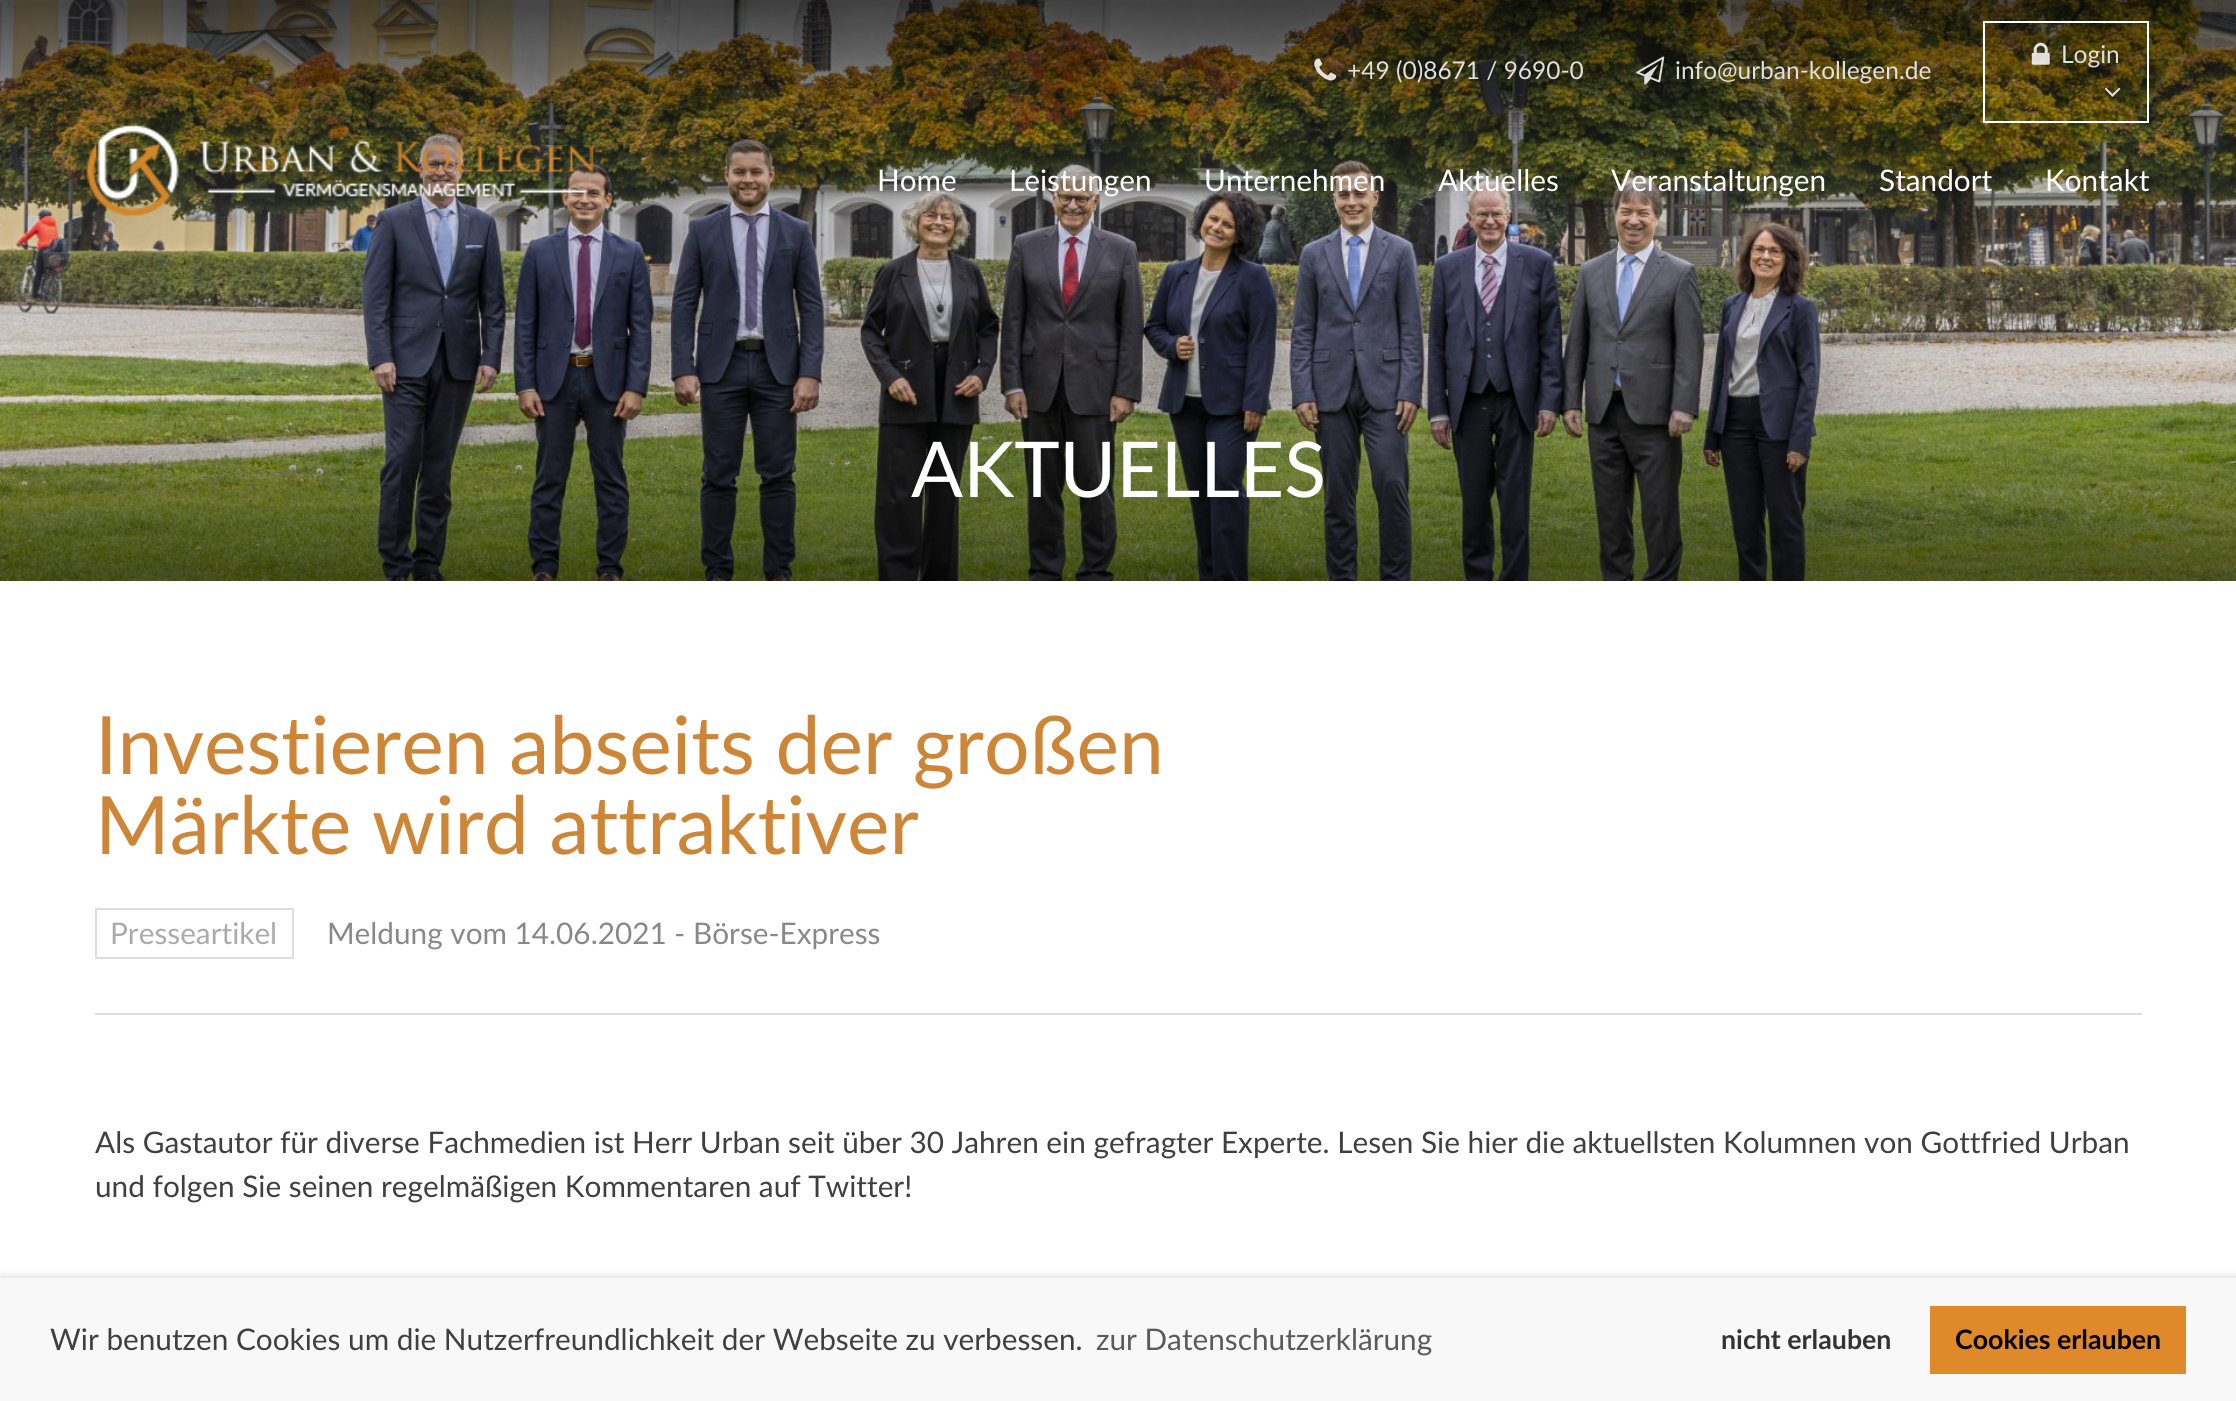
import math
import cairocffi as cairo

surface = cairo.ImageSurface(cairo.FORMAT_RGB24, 2236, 1401)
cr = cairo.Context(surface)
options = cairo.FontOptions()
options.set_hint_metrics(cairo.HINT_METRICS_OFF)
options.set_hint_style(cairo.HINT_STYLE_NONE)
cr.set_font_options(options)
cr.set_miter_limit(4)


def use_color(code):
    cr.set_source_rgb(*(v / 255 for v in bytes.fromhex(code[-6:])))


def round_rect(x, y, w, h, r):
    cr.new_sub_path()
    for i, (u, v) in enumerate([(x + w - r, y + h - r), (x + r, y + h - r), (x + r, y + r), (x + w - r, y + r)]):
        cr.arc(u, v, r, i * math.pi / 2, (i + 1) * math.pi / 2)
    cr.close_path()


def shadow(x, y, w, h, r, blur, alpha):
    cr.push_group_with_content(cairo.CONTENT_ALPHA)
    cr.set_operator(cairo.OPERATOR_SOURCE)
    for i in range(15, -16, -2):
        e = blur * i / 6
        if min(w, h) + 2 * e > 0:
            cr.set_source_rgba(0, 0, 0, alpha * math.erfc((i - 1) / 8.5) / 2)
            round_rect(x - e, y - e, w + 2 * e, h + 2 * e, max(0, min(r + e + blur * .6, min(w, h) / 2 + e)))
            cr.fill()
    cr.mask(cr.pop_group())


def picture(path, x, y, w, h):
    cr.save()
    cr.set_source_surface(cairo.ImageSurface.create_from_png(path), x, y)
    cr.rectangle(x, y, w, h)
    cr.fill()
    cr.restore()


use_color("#ffffff")
cr.paint()
picture("img6.png", 0, 0, 2236, 581)
cr.rectangle(1984, 22, 164, 100)
use_color("#ffffff")
cr.stroke()
picture("img1.png", 2031, 42, 19, 23)
cr.select_font_face("Lato")
cr.set_font_size(24.5)
use_color("#dfdfdc")
cr.move_to(2061, 63)
cr.show_text("Login")
picture("img2.png", 2104, 87, 17, 10)
picture("img3.png", 1314, 58, 23, 23)
cr.move_to(1347, 79)
cr.show_text("+49 (0)8671 / 9690-0")
picture("img4.png", 1636, 56, 29, 29)
cr.move_to(1675, 79)
cr.show_text("info@urban-kollegen.de")
picture("img5.png", 87, 124, 508, 93)
cr.set_font_size(29.75)
use_color("#ffffff")
cr.move_to(877, 191)
cr.show_text("Home")
cr.move_to(1009, 191)
cr.show_text("Leistungen")
cr.move_to(1204, 191)
cr.show_text("Unternehmen")
cr.move_to(1438, 191)
cr.show_text("Aktuelles")
cr.move_to(1611, 191)
cr.show_text("Veranstaltungen")
cr.move_to(1879, 191)
cr.show_text("Standort")
cr.move_to(2045, 191)
cr.show_text("Kontakt")
cr.set_font_size(77)
cr.move_to(911, 497)
cr.show_text("AKTUELLES")
cr.set_font_size(80.5)
use_color("#cd8637")
cr.move_to(95, 774)
cr.show_text("Investieren abseits der großen")
cr.move_to(95, 854)
cr.show_text("Märkte wird attraktiver")
cr.rectangle(96, 909, 197, 49)
use_color("#dddddd")
cr.stroke()
cr.set_font_size(29.75)
use_color("#aaaaaa")
cr.move_to(110, 944)
cr.show_text("Presseartikel")
use_color("#888888")
cr.move_to(327, 944)
cr.show_text("Meldung vom 14.06.2021 - Börse-Express")
use_color("#dddddd")
cr.rectangle(95, 1013, 2047, 2)
cr.fill()
use_color("#403f40")
cr.move_to(95, 1153)
cr.show_text("Als Gastautor für diverse Fachmedien ist Herr Urban seit über 30 Jahren ein gefragter Experte. Lesen Sie hier die aktuellsten Kolumnen von Gottfried Urban")
cr.move_to(95, 1197)
cr.show_text("und folgen Sie seinen regelmäßigen Kommentaren auf Twitter!")
use_color("#000000")
shadow(0, 1278, 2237, 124, 0, 4.5, 0.2)
use_color("#f8f8f8")
cr.rectangle(0, 1278, 2236, 123)
cr.fill()
use_color("#403f40")
cr.move_to(50, 1350)
cr.show_text("Wir benutzen Cookies um die Nutzerfreundlichkeit der Webseite zu verbessen.")
use_color("#5a5a5a")
cr.move_to(1096, 1350)
cr.show_text("zur Datenschutzerklärung")
cr.select_font_face("Lato", cairo.FONT_SLANT_NORMAL, cairo.FONT_WEIGHT_BOLD)
cr.set_font_size(26.75)
use_color("#333333")
cr.move_to(1721, 1349)
cr.show_text("nicht erlauben")
use_color("#df892a")
cr.rectangle(1930, 1306, 256, 68)
cr.fill()
use_color("#000000")
cr.move_to(1955, 1349)
cr.show_text("Cookies erlauben")
surface.write_to_png("result.png")
